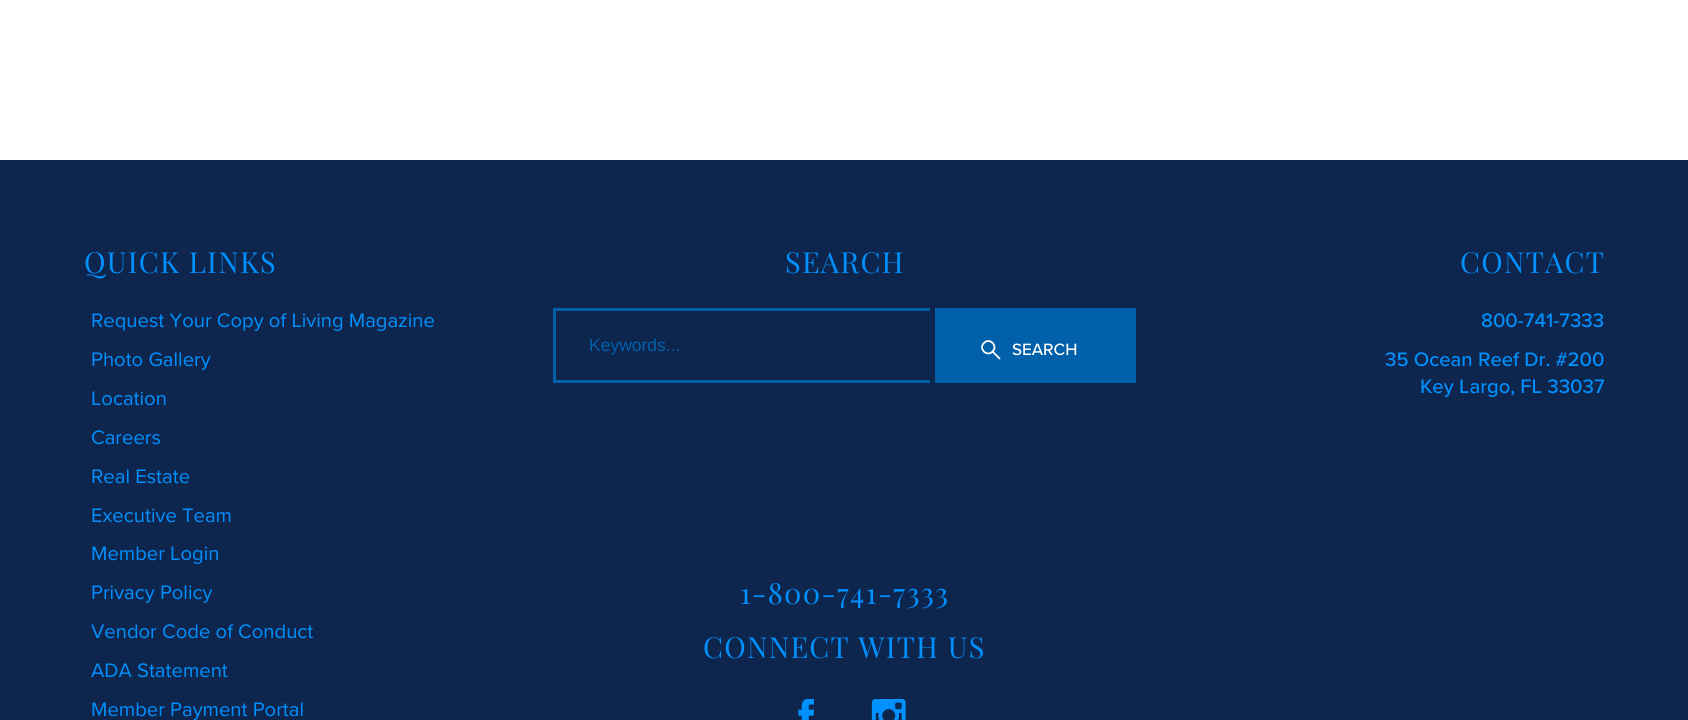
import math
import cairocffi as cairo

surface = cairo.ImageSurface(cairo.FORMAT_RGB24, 1688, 720)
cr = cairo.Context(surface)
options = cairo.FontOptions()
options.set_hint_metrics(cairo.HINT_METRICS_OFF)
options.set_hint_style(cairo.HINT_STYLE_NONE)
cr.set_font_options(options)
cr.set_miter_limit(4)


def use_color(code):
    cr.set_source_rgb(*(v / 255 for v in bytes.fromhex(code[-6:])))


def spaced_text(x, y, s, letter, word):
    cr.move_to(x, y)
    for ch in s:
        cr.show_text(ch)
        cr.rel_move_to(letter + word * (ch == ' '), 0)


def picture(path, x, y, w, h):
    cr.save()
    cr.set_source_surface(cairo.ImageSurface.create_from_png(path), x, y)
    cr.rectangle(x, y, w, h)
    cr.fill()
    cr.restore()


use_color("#ffffff")
cr.paint()
use_color("#0e264e")
cr.rectangle(0, 160, 1688, 560)
cr.fill()
cr.select_font_face("Playfair Display")
cr.set_font_size(29)
use_color("#0091ff")
spaced_text(84, 273, "QUICK LINKS", 1.25, 0)
cr.select_font_face("Proxima Nova")
cr.set_font_size(20.25)
cr.move_to(91, 327)
cr.show_text("Request Your Copy of Living Magazine")
cr.move_to(91, 366)
cr.show_text("Photo Gallery")
cr.move_to(91, 405)
cr.show_text("Location")
cr.move_to(91, 444)
cr.show_text("Careers")
cr.move_to(91, 483)
cr.show_text("Real Estate")
cr.move_to(91, 522)
cr.show_text("Executive Team")
cr.move_to(91, 560)
cr.show_text("Member Login")
cr.move_to(91, 599)
cr.show_text("Privacy Policy")
cr.move_to(91, 638)
cr.show_text("Vendor Code of Conduct")
cr.move_to(91, 677)
cr.show_text("ADA Statement")
cr.move_to(91, 716)
cr.show_text("Member Payment Portal")
cr.select_font_face("Playfair Display")
cr.set_font_size(29)
spaced_text(785, 273, "SEARCH", 1.25, 0)
use_color("#0060a9")
cr.rectangle(553, 308, 377, 3)
cr.fill()
cr.rectangle(553, 380, 377, 3)
cr.fill()
cr.rectangle(553, 308, 3, 75)
cr.fill()
cr.select_font_face("Liberation Sans")
cr.set_font_size(17.5)
cr.move_to(589, 351)
cr.show_text("Keywords...")
cr.rectangle(935, 308, 201, 75)
cr.fill()
cr.new_path()
cr.move_to(984, 343)
cr.curve_to(989.5, 337, 998.5, 346, 992.5, 351.5)
cr.curve_to(987, 357.5, 978, 348.5, 984, 343)
cr.close_path()
cr.move_to(992.5, 351.5)
cr.line_to(1000, 359)
use_color("#ffffff")
cr.set_line_width(1.8)
cr.stroke()
cr.select_font_face("Proxima Nova Medium")
cr.set_font_size(17)
cr.move_to(1012, 355)
cr.show_text("SEARCH")
cr.select_font_face("Playfair Display")
cr.set_font_size(29)
use_color("#0091ff")
spaced_text(740, 604, "1-800-741-7333", 1.25, 0)
spaced_text(703, 658, "CONNECT WITH US", 1.25, 0)
picture("img1.png", 798, 699, 16, 21)
picture("img2.png", 871, 699, 35, 21)
spaced_text(1460, 273, "CONTACT", 1.25, 0)
cr.select_font_face("Proxima Nova Medium")
cr.set_font_size(20.25)
cr.move_to(1481, 327)
cr.show_text("800-741-7333")
cr.move_to(1385, 366)
cr.show_text("35 Ocean Reef Dr. #200")
cr.move_to(1420, 393)
cr.show_text("Key Largo, FL 33037")
surface.write_to_png("result.png")
